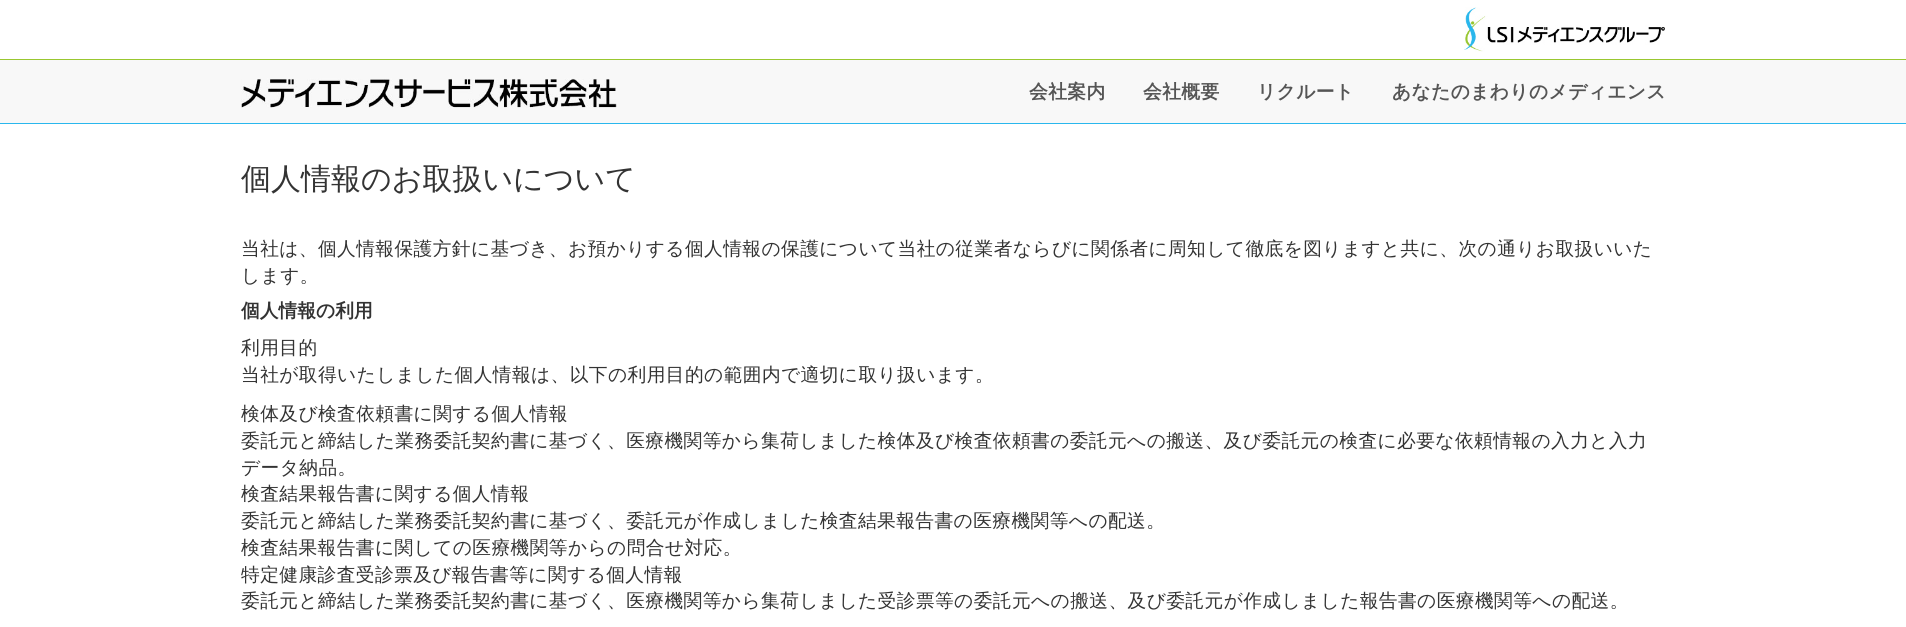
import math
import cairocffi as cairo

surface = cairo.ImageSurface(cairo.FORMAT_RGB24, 1906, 627)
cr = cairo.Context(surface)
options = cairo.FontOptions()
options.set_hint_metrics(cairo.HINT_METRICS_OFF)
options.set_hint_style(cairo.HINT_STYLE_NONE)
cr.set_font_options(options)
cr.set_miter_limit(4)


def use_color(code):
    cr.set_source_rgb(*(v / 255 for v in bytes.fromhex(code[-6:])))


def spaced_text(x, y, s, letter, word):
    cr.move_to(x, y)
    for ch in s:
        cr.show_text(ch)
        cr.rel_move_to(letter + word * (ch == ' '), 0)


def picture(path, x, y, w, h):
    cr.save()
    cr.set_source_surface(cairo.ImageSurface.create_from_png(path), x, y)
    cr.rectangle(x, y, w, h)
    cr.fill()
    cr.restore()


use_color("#ffffff")
cr.paint()
use_color("#f8f8f8")
cr.rectangle(0, 60, 1906, 63)
cr.fill()
use_color("#2ab7ed")
cr.rectangle(0, 123, 1906, 1)
cr.fill()
use_color("#99c730")
cr.rectangle(0, 59, 1906, 1)
cr.fill()
picture("img1.png", 1464, 7, 201, 45)
picture("img2.png", 241, 78, 376, 30)
cr.select_font_face("WenQuanYi Zen Hei", cairo.FONT_SLANT_NORMAL, cairo.FONT_WEIGHT_BOLD)
cr.set_font_size(18.75)
use_color("#555555")
spaced_text(1029, 98, "会社案内", 0.38, 0)
spaced_text(1143, 98, "会社概要", 0.38, 0)
spaced_text(1257, 98, "リクルート", 0.38, 0)
spaced_text(1392, 98, "あなたのまわりのメディエンス", 0.38, 0)
cr.select_font_face("WenQuanYi Zen Hei Medium")
cr.set_font_size(30)
use_color("#333333")
cr.move_to(241, 189)
cr.show_text("個人情報のお取扱いについて")
cr.set_font_size(18.75)
spaced_text(241, 255, "当社は、個人情報保護方針に基づき、お預かりする個人情報の保護について当社の従業者ならびに関係者に周知して徹底を図りますと共に、次の通りお取扱いいた", 0.38, 0)
spaced_text(241, 282, "します。", 0.38, 0)
cr.select_font_face("WenQuanYi Zen Hei", cairo.FONT_SLANT_NORMAL, cairo.FONT_WEIGHT_BOLD)
cr.move_to(241, 317)
cr.show_text("個人情報の利用")
cr.select_font_face("WenQuanYi Zen Hei Medium")
spaced_text(241, 354, "利用目的", 0.38, 0)
spaced_text(241, 381, "当社が取得いたしました個人情報は、以下の利用目的の範囲内で適切に取り扱います。", 0.38, 0)
spaced_text(241, 420, "検体及び検査依頼書に関する個人情報", 0.38, 0)
spaced_text(241, 447, "委託元と締結した業務委託契約書に基づく、医療機関等から集荷しました検体及び検査依頼書の委託元への搬送、及び委託元の検査に必要な依頼情報の入力と入力", 0.38, 0)
spaced_text(241, 474, "データ納品。", 0.38, 0)
spaced_text(241, 500, "検査結果報告書に関する個人情報", 0.38, 0)
spaced_text(241, 527, "委託元と締結した業務委託契約書に基づく、委託元が作成しました検査結果報告書の医療機関等への配送。", 0.38, 0)
spaced_text(241, 554, "検査結果報告書に関しての医療機関等からの問合せ対応。", 0.38, 0)
spaced_text(241, 581, "特定健康診査受診票及び報告書等に関する個人情報", 0.38, 0)
spaced_text(241, 607, "委託元と締結した業務委託契約書に基づく、医療機関等から集荷しました受診票等の委託元への搬送、及び委託元が作成しました報告書の医療機関等への配送。", 0.38, 0)
surface.write_to_png("result.png")
